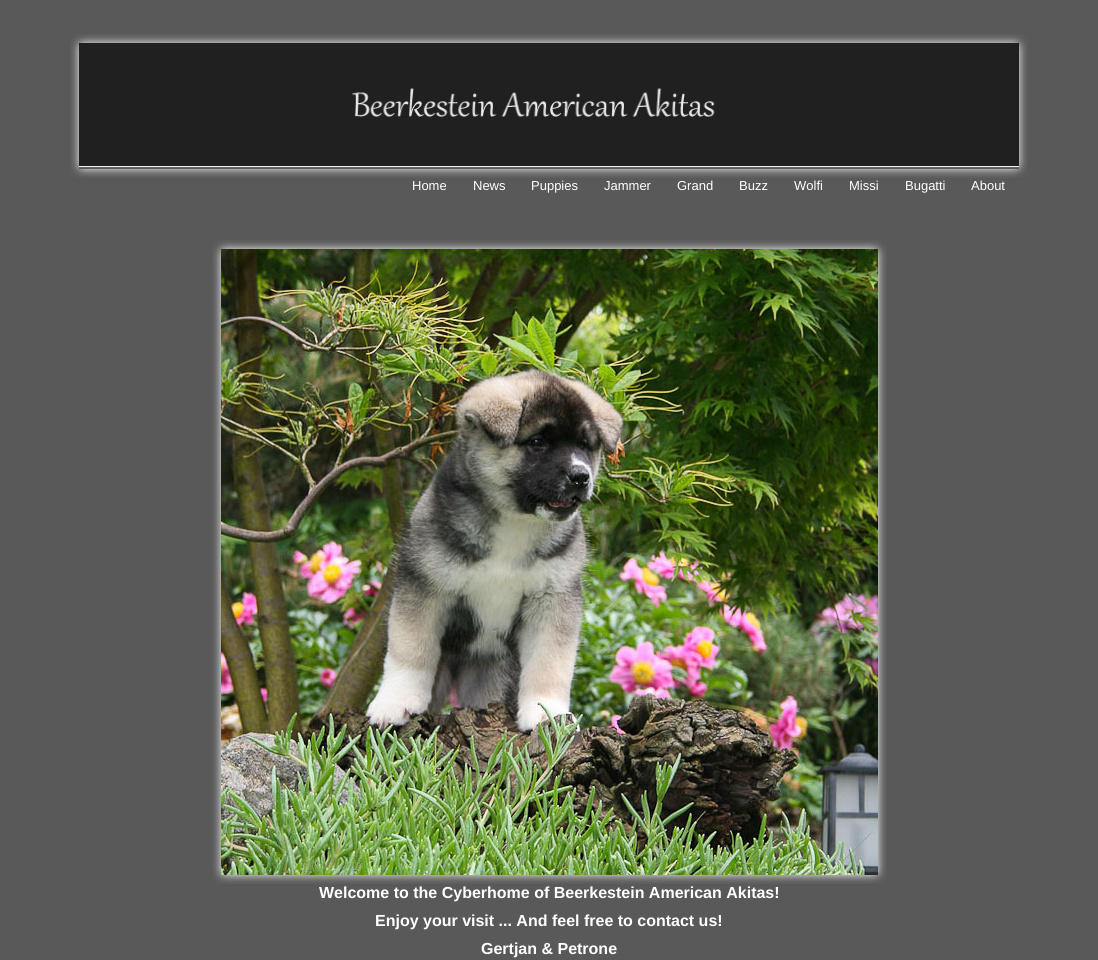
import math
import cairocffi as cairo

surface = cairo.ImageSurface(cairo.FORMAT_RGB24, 1098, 960)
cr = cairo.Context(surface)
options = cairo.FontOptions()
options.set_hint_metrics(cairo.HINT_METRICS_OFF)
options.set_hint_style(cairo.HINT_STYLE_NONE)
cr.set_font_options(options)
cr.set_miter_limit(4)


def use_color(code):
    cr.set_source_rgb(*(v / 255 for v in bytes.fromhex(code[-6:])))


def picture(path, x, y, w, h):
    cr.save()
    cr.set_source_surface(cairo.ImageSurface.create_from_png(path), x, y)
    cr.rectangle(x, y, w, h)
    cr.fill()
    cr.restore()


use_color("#595959")
cr.paint()
picture("img1.png", 70, 34, 958, 144)
cr.select_font_face("Liberation Sans")
cr.set_font_size(13)
use_color("#ffffff")
cr.move_to(412, 190)
cr.show_text("Home")
cr.move_to(473, 190)
cr.show_text("News")
cr.move_to(531, 190)
cr.show_text("Puppies")
cr.move_to(604, 190)
cr.show_text("Jammer")
cr.move_to(677, 190)
cr.show_text("Grand")
cr.move_to(739, 190)
cr.show_text("Buzz")
cr.move_to(794, 190)
cr.show_text("Wolfi")
cr.move_to(849, 190)
cr.show_text("Missi")
cr.move_to(905, 190)
cr.show_text("Bugatti")
cr.move_to(971, 190)
cr.show_text("About")
picture("img2.png", 212, 240, 675, 644)
cr.select_font_face("Liberation Sans", cairo.FONT_SLANT_NORMAL, cairo.FONT_WEIGHT_BOLD)
cr.set_font_size(16)
cr.move_to(319, 898)
cr.show_text("Welcome to the Cyberhome of Beerkestein American Akitas!")
cr.move_to(375, 926)
cr.show_text("Enjoy your visit ... And feel free to contact us!")
cr.move_to(481, 954)
cr.show_text("Gertjan & Petrone")
surface.write_to_png("result.png")
